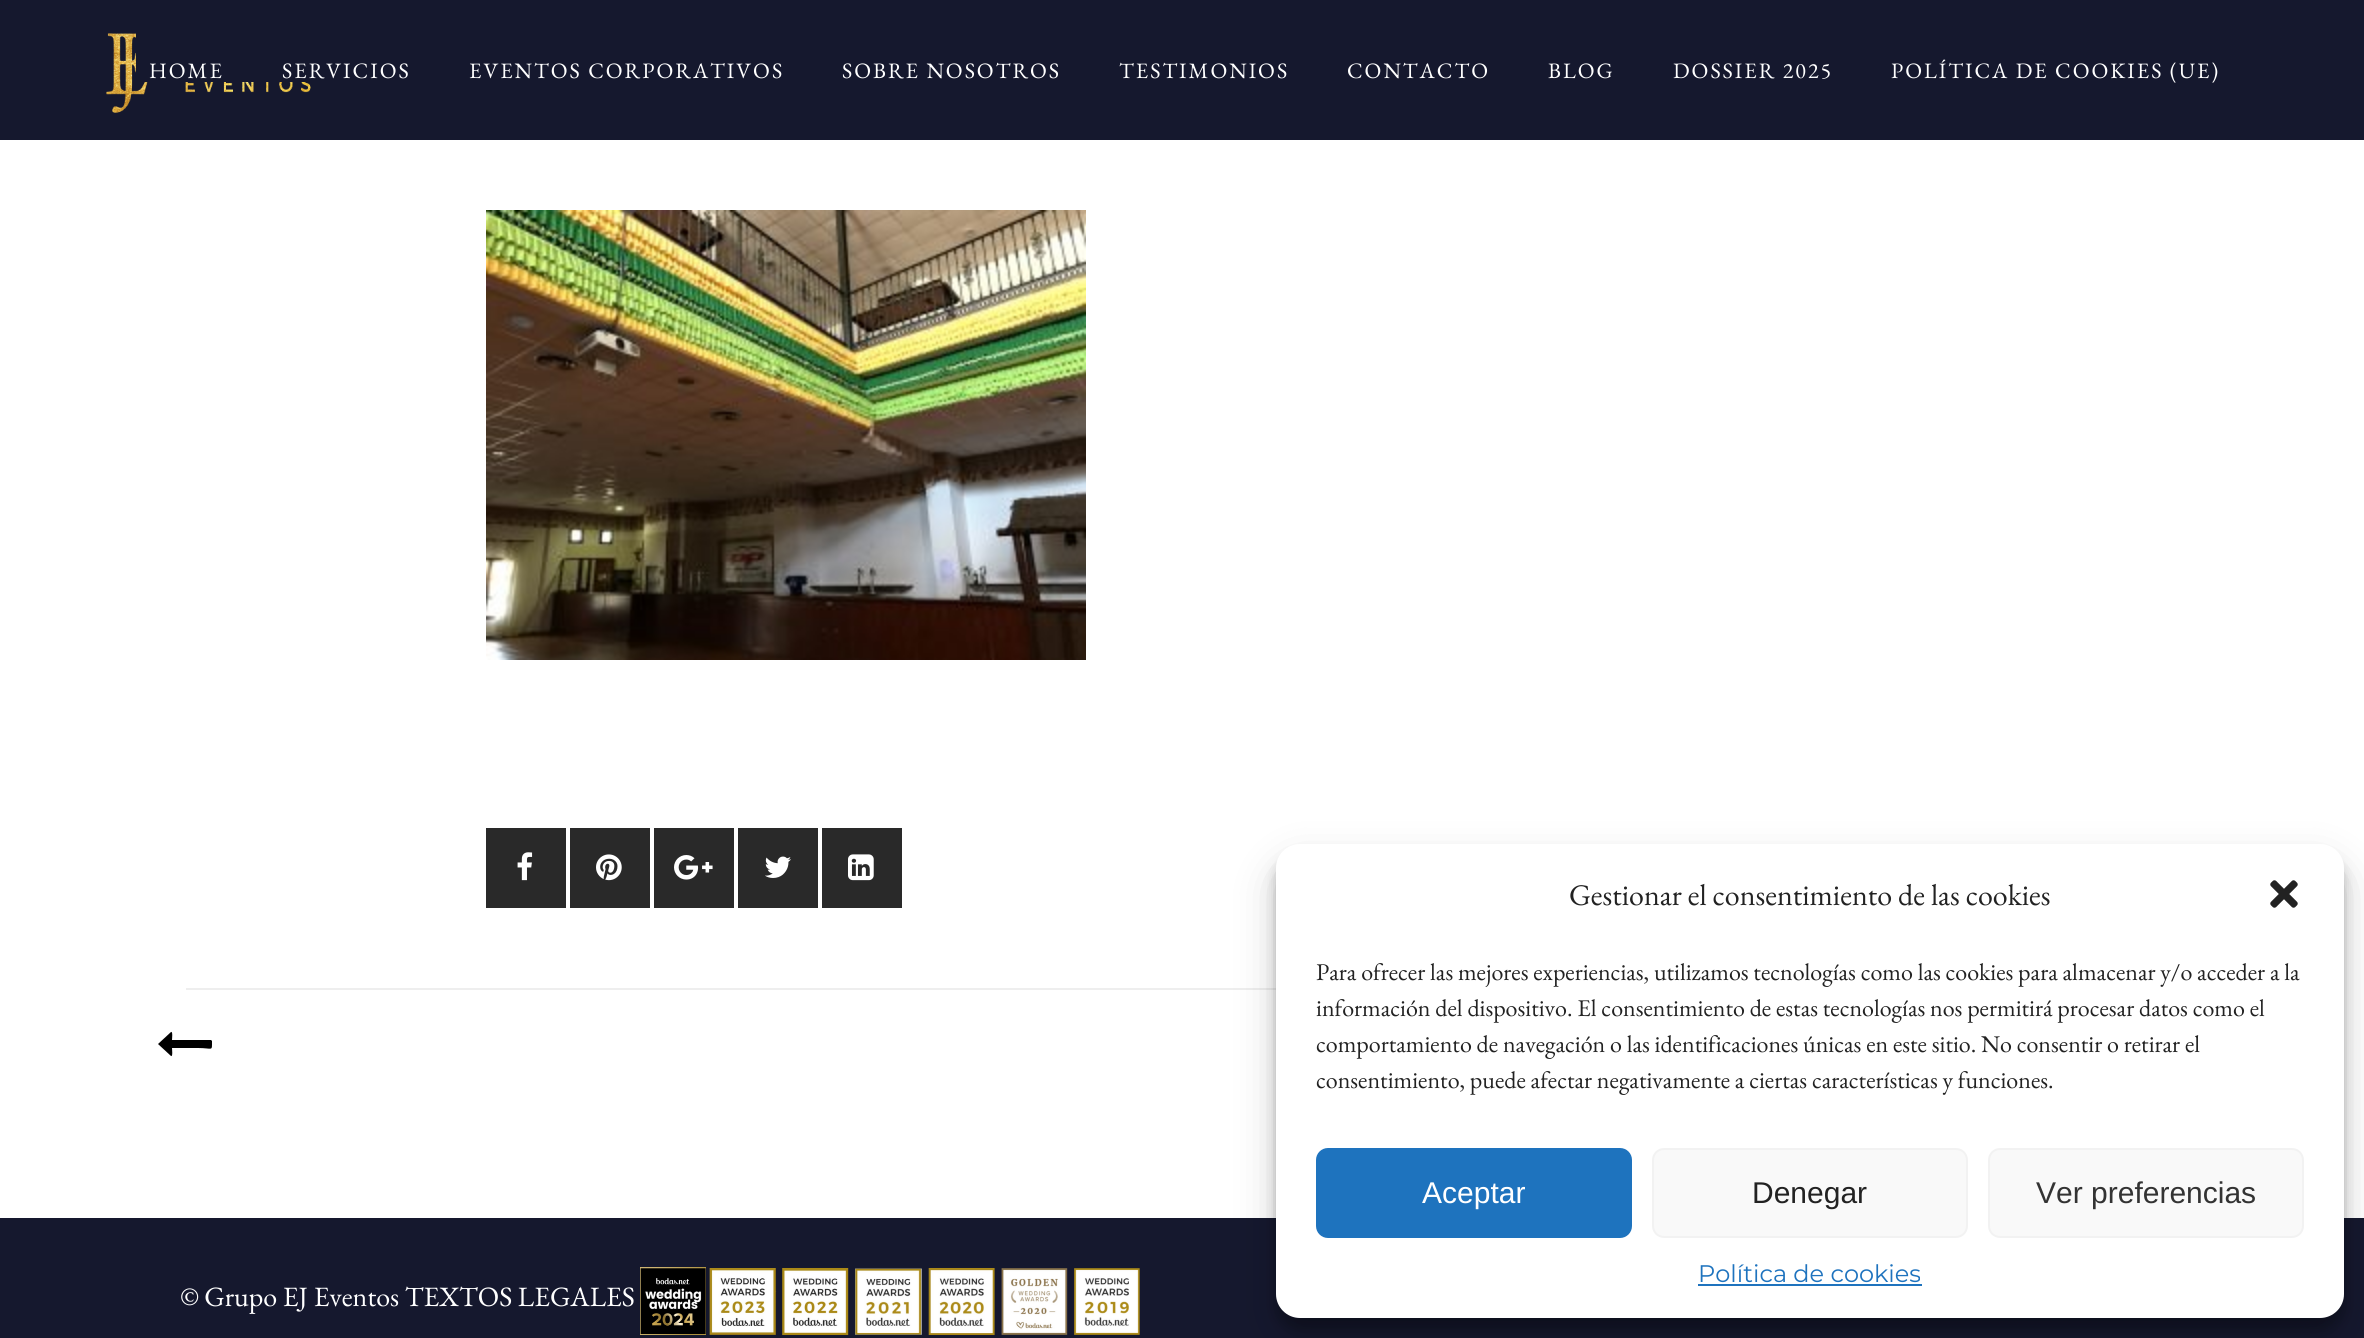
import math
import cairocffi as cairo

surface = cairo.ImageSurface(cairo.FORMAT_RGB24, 2364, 1338)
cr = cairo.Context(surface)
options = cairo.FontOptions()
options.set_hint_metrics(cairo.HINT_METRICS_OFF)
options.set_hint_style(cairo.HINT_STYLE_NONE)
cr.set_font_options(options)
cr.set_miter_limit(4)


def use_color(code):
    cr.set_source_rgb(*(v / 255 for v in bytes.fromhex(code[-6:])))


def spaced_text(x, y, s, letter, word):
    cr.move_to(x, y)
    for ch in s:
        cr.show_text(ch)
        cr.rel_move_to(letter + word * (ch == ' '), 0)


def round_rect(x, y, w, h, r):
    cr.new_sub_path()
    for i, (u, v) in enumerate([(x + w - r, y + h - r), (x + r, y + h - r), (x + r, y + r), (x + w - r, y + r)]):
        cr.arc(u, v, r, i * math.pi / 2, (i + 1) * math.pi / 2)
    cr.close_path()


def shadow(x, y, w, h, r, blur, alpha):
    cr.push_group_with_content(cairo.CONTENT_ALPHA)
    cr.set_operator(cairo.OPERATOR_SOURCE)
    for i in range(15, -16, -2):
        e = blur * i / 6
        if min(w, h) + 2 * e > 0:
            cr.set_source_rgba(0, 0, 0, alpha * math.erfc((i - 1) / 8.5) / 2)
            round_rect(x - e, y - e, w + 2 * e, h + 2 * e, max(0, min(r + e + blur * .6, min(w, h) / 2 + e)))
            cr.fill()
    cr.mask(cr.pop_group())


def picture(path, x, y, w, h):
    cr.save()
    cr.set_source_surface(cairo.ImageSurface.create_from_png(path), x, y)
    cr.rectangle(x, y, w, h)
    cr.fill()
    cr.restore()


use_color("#ffffff")
cr.paint()
use_color("#15182e")
cr.rectangle(0, 0, 2364, 140)
cr.fill()
picture("img1.png", 106, 33, 205, 80)
cr.rectangle(136, 33, 175, 49)
cr.fill()
cr.select_font_face("EB Garamond")
cr.set_font_size(22)
use_color("#ffffff")
spaced_text(149, 78, "HOME", 2, 0)
spaced_text(282, 78, "SERVICIOS", 2, 0)
spaced_text(469, 78, "EVENTOS CORPORATIVOS", 2, 0)
spaced_text(842, 78, "SOBRE NOSOTROS", 2, 0)
spaced_text(1119, 78, "TESTIMONIOS", 2, 0)
spaced_text(1347, 78, "CONTACTO", 2, 0)
spaced_text(1548, 78, "BLOG", 2, 0)
spaced_text(1673, 78, "DOSSIER 2025", 2, 0)
spaced_text(1891, 78, "POLÍTICA DE COOKIES (UE)", 2, 0)
use_color("#eeeeee")
cr.rectangle(186, 988, 1090, 2)
cr.fill()
picture("img2.png", 486, 210, 600, 450)
use_color("#292929")
cr.rectangle(486, 828, 80, 80)
cr.fill()
picture("img3.png", 517, 852, 16, 29)
cr.rectangle(570, 828, 80, 80)
cr.fill()
picture("img4.png", 596, 854, 26, 27)
cr.rectangle(654, 828, 80, 80)
cr.fill()
picture("img5.png", 674, 855, 39, 25)
cr.rectangle(738, 828, 80, 80)
cr.fill()
picture("img6.png", 765, 856, 26, 22)
cr.rectangle(822, 828, 80, 80)
cr.fill()
picture("img7.png", 848, 854, 26, 27)
use_color("#000000")
cr.new_path()
cr.move_to(212, 1041)
cr.curve_to(212, 1052, 213, 1048, 198, 1048)
cr.line_to(172, 1048)
cr.curve_to(172, 1049, 173, 1057, 171, 1056)
cr.line_to(158, 1044)
cr.line_to(171, 1032)
cr.curve_to(173, 1031, 172, 1039, 172, 1040)
cr.line_to(211, 1040)
cr.close_path()
cr.fill()
use_color("#15182e")
cr.rectangle(0, 1218, 2364, 120)
cr.fill()
cr.set_font_size(28)
use_color("#ffffff")
cr.move_to(180, 1306)
cr.show_text("© Grupo EJ Eventos TEXTOS LEGALES")
picture("img8.png", 640, 1267, 500, 69)
use_color("#000000")
shadow(1276, 856, 1068, 474, 24, 6, 0.23)
shadow(1276, 864, 1068, 474, 24, 20, 0.19)
use_color("#ffffff")
round_rect(1276, 844, 1068, 474, 24)
cr.fill()
cr.set_font_size(30)
use_color("#222222")
cr.move_to(1569, 905)
cr.show_text("Gestionar el consentimiento de las cookies")
picture("img9.png", 2270, 880, 28, 28)
cr.set_font_size(24)
cr.move_to(1316, 980)
cr.show_text("Para ofrecer las mejores experiencias, utilizamos tecnologías como las cookies para almacenar y/o acceder a la")
cr.move_to(1316, 1016)
cr.show_text("información del dispositivo. El consentimiento de estas tecnologías nos permitirá procesar datos como el")
cr.move_to(1316, 1052)
cr.show_text("comportamiento de navegación o las identificaciones únicas en este sitio. No consentir o retirar el")
cr.move_to(1316, 1088)
cr.show_text("consentimiento, puede afectar negativamente a ciertas características y funciones.")
use_color("#1e73be")
round_rect(1317, 1149, 314, 88, 11)
cr.fill_preserve()
cr.stroke()
cr.select_font_face("Liberation Sans")
cr.set_font_size(30)
use_color("#ffffff")
cr.move_to(1422, 1203)
cr.show_text("Aceptar")
use_color("#f9f9f9")
round_rect(1653, 1149, 314, 88, 11)
cr.fill_preserve()
use_color("#f2f2f2")
cr.stroke()
use_color("#222222")
cr.move_to(1752, 1203)
cr.show_text("Denegar")
use_color("#f9f9f9")
round_rect(1989, 1149, 314, 88, 11)
cr.fill_preserve()
use_color("#f2f2f2")
cr.stroke()
use_color("#333333")
cr.move_to(2036, 1203)
cr.show_text("Ver preferencias")
cr.select_font_face("Montserrat Thin")
cr.set_font_size(24)
use_color("#1e73be")
cr.move_to(1698, 1282)
cr.show_text("Política de cookies")
cr.rectangle(1698, 1284, 224, 2)
cr.fill()
surface.write_to_png("result.png")
